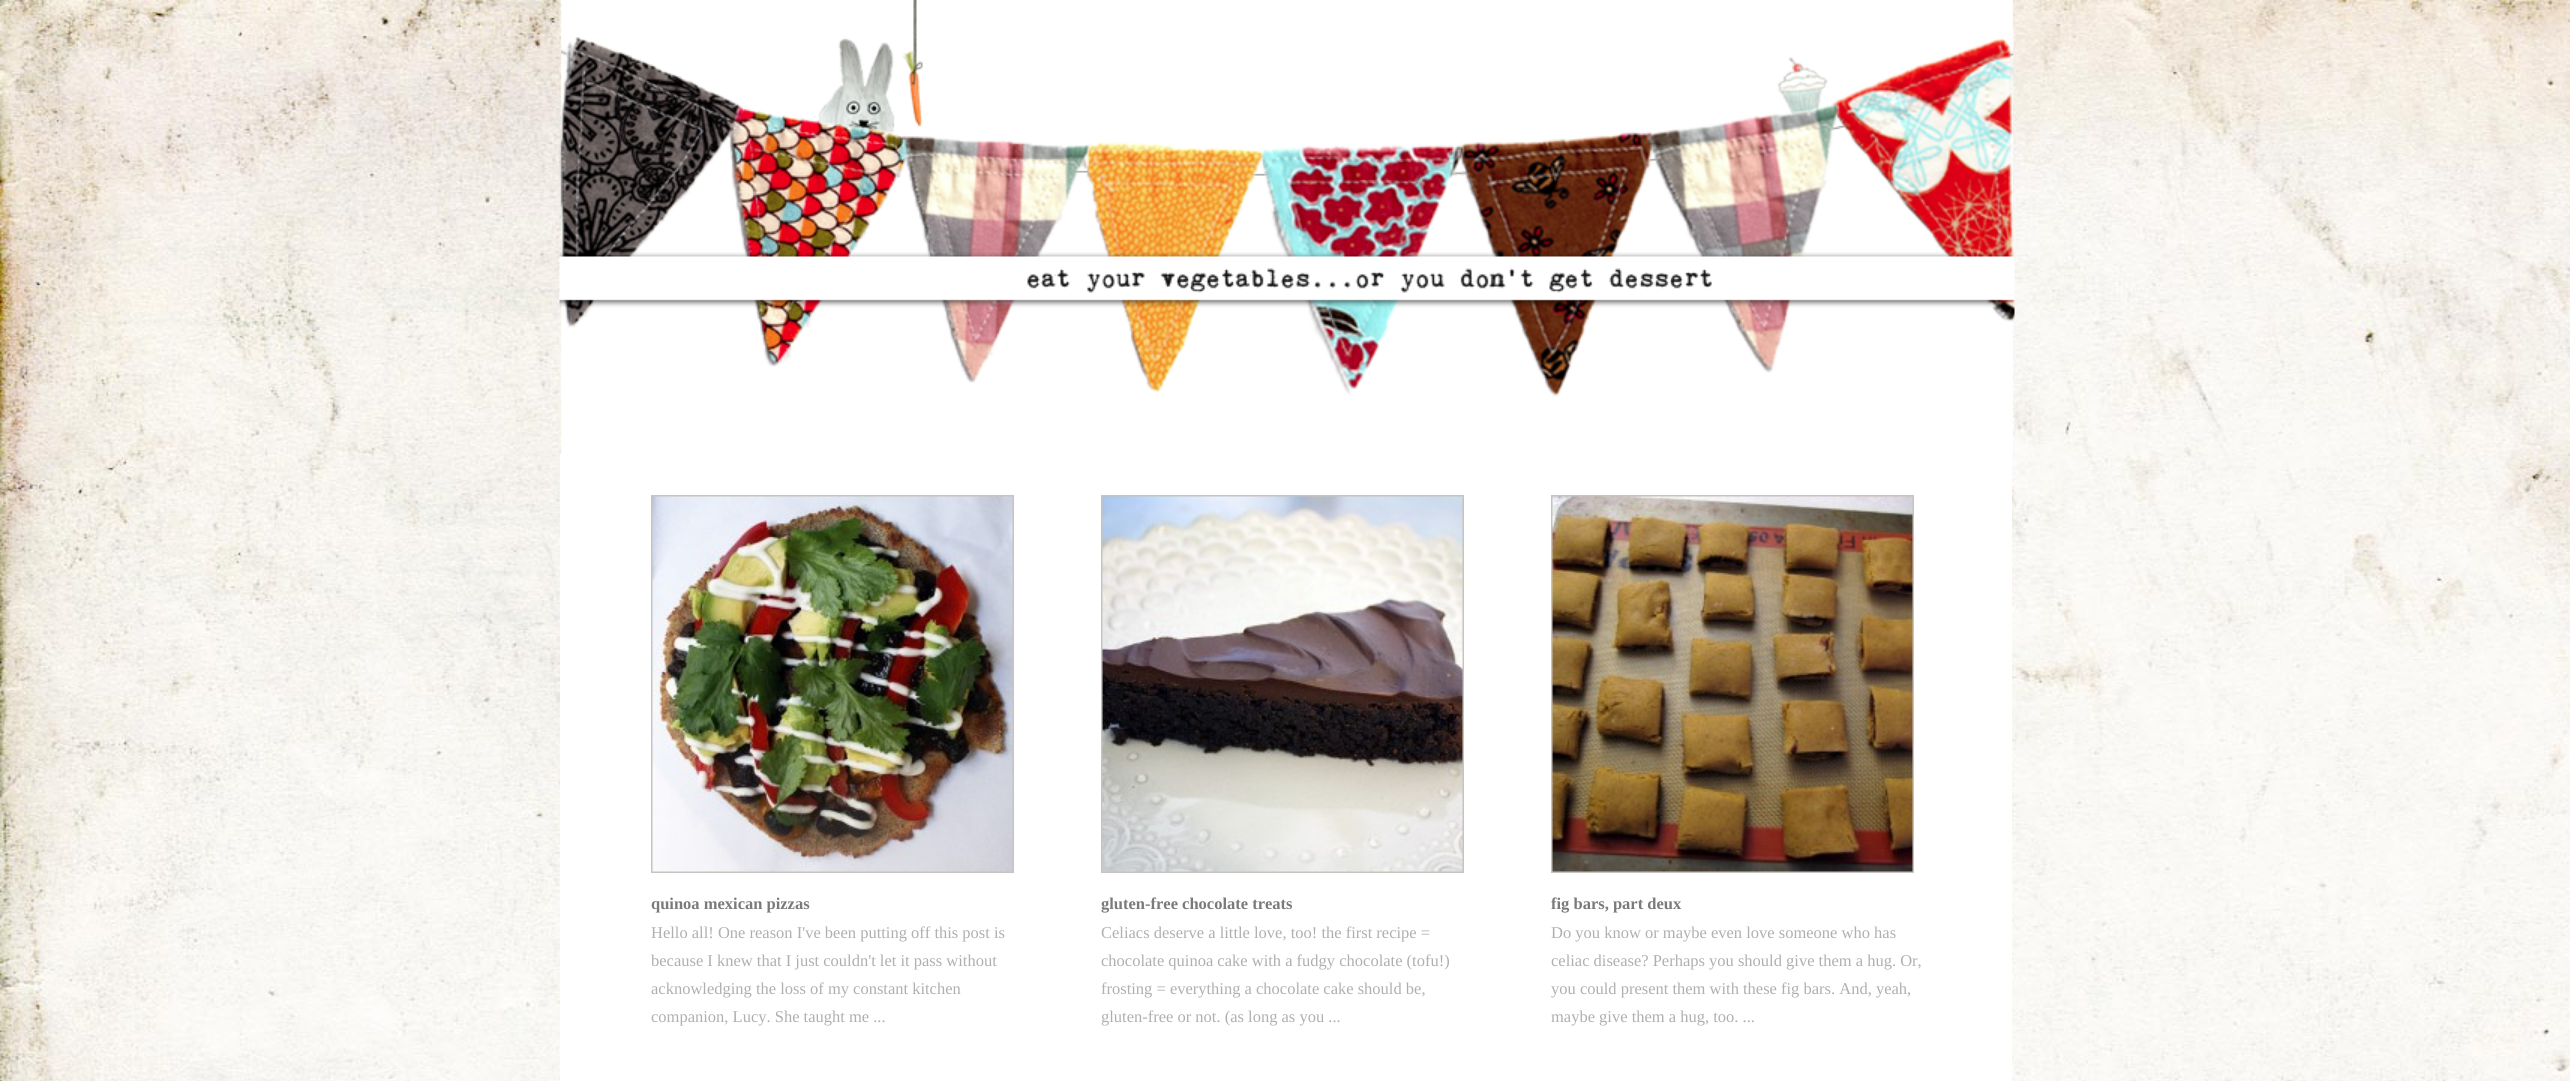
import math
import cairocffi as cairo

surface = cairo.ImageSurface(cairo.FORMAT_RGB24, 2570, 1081)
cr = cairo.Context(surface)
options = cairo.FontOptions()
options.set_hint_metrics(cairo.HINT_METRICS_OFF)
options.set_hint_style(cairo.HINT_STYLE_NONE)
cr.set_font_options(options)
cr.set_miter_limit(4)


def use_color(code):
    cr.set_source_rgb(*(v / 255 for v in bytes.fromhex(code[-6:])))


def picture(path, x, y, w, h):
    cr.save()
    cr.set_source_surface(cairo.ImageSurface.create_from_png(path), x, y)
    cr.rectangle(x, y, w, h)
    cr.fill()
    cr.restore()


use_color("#ffffff")
cr.paint()
picture("img1.png", 0, 0, 2570, 1081)
use_color("#ffffff")
cr.rectangle(560, 454, 1452, 627)
cr.fill()
picture("img2.png", 559, 0, 1456, 455)
cr.rectangle(652, 496, 361, 376)
use_color("#c7c3be")
cr.stroke()
picture("img3.png", 652, 496, 361, 376)
cr.select_font_face("Liberation Serif", cairo.FONT_SLANT_NORMAL, cairo.FONT_WEIGHT_BOLD)
cr.set_font_size(16.5)
use_color("#7a7a7a")
cr.move_to(651, 909)
cr.show_text("quinoa mexican pizzas")
cr.select_font_face("Liberation Serif")
use_color("#afafaf")
cr.move_to(651, 938)
cr.show_text("Hello all! One reason I've been putting off this post is")
cr.move_to(651, 966)
cr.show_text("because I knew that I just couldn't let it pass without")
cr.move_to(651, 994)
cr.show_text("acknowledging the loss of my constant kitchen")
cr.move_to(651, 1022)
cr.show_text("companion, Lucy. She taught me ...")
cr.rectangle(1102, 496, 361, 376)
use_color("#c7c3be")
cr.stroke()
picture("img4.png", 1102, 496, 361, 376)
cr.select_font_face("Liberation Serif", cairo.FONT_SLANT_NORMAL, cairo.FONT_WEIGHT_BOLD)
use_color("#7a7a7a")
cr.move_to(1101, 909)
cr.show_text("gluten-free chocolate treats")
cr.select_font_face("Liberation Serif")
use_color("#afafaf")
cr.move_to(1101, 938)
cr.show_text("Celiacs deserve a little love, too! the first recipe =")
cr.move_to(1101, 966)
cr.show_text("chocolate quinoa cake with a fudgy chocolate (tofu!)")
cr.move_to(1101, 994)
cr.show_text("frosting = everything a chocolate cake should be,")
cr.move_to(1101, 1022)
cr.show_text("gluten-free or not. (as long as you ...")
cr.rectangle(1552, 496, 361, 376)
use_color("#c7c3be")
cr.stroke()
picture("img5.png", 1552, 496, 361, 376)
cr.select_font_face("Liberation Serif", cairo.FONT_SLANT_NORMAL, cairo.FONT_WEIGHT_BOLD)
use_color("#7a7a7a")
cr.move_to(1551, 909)
cr.show_text("fig bars, part deux")
cr.select_font_face("Liberation Serif")
use_color("#afafaf")
cr.move_to(1551, 938)
cr.show_text("Do you know or maybe even love someone who has")
cr.move_to(1551, 966)
cr.show_text("celiac disease? Perhaps you should give them a hug. Or,")
cr.move_to(1551, 994)
cr.show_text("you could present them with these fig bars. And, yeah,")
cr.move_to(1551, 1022)
cr.show_text("maybe give them a hug, too. ...")
surface.write_to_png("result.png")
